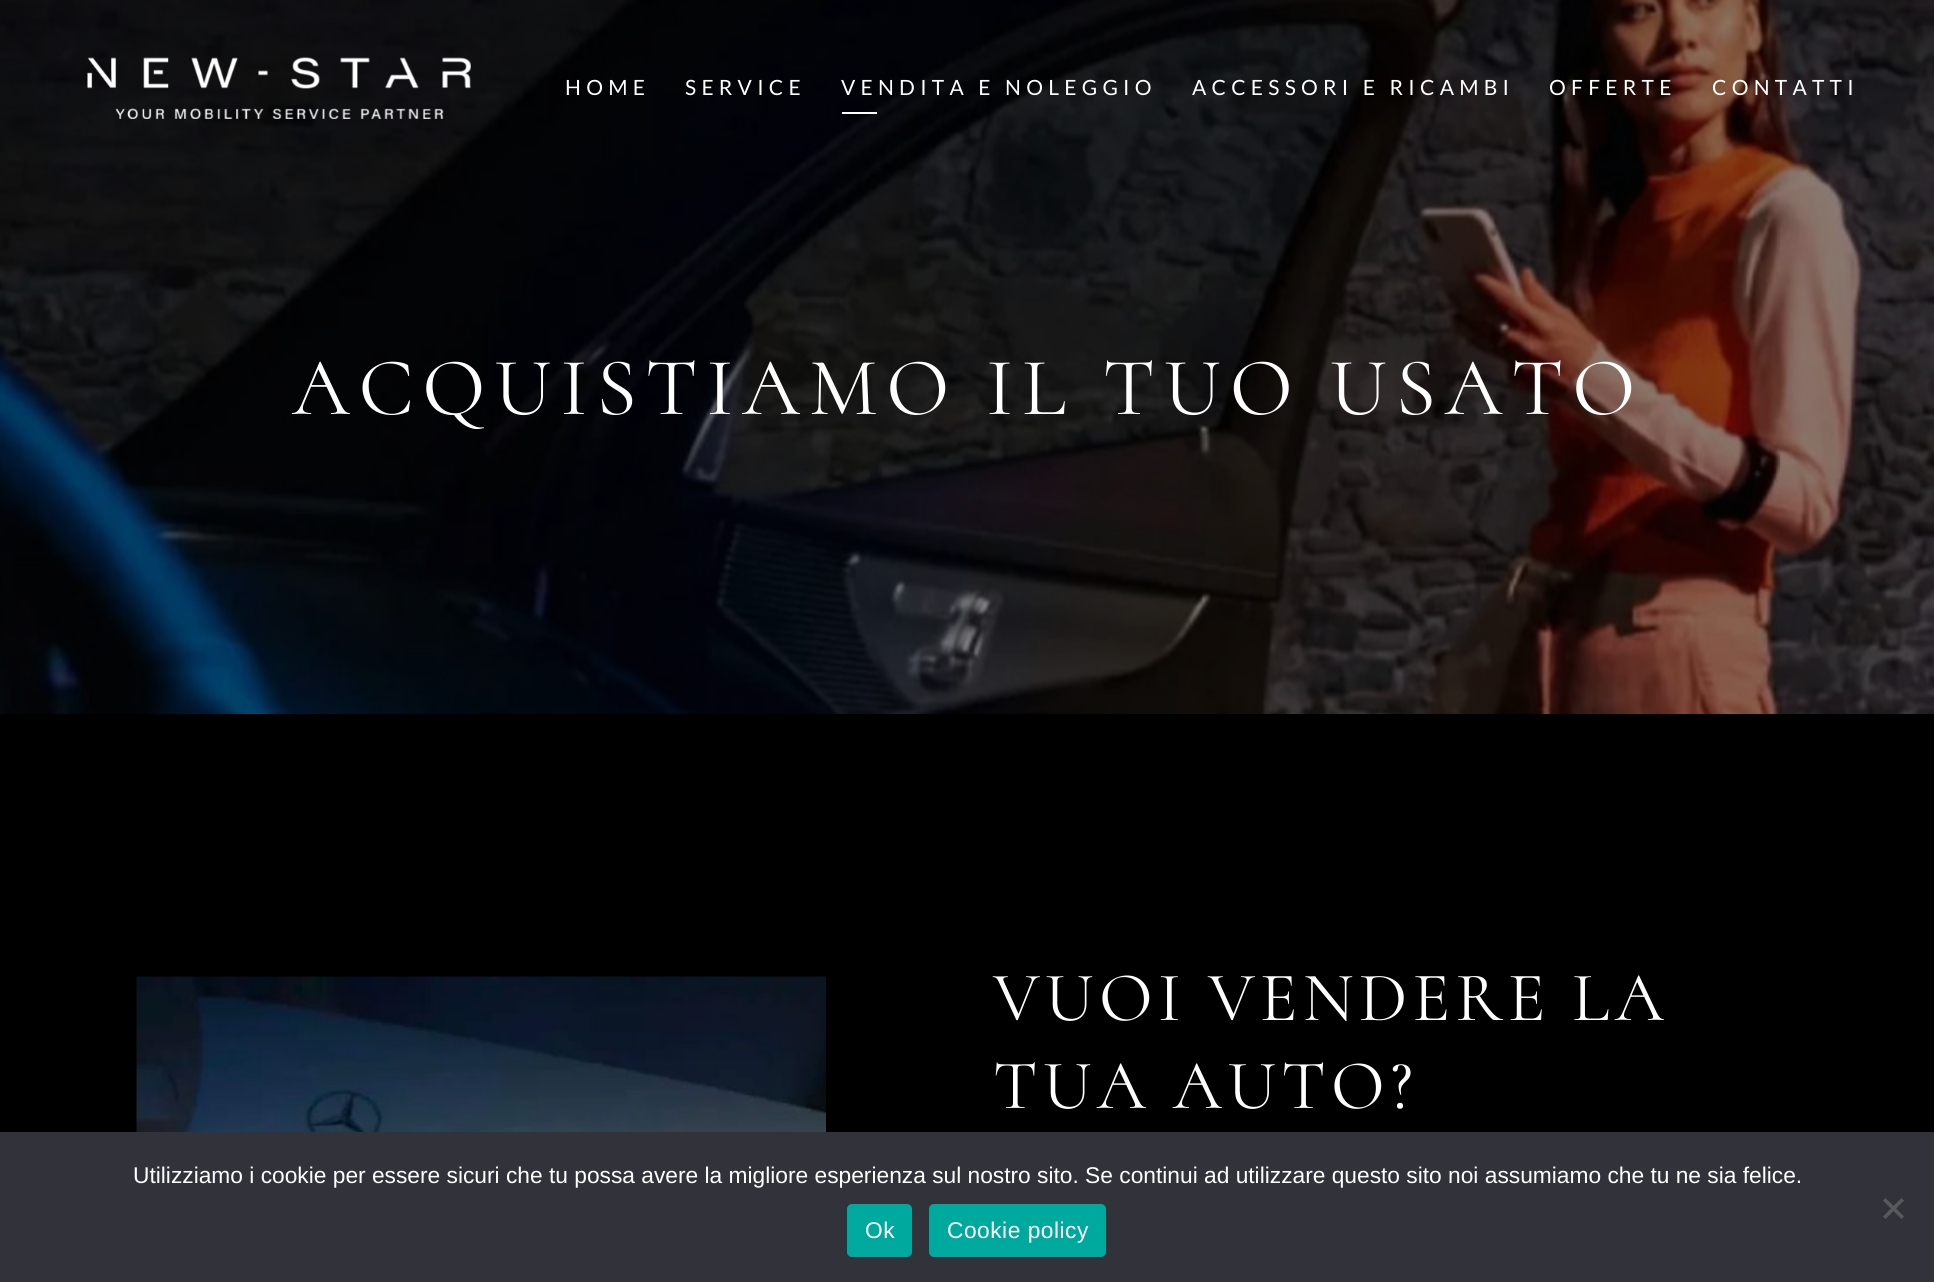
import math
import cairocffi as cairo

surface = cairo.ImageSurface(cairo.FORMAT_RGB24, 1934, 1282)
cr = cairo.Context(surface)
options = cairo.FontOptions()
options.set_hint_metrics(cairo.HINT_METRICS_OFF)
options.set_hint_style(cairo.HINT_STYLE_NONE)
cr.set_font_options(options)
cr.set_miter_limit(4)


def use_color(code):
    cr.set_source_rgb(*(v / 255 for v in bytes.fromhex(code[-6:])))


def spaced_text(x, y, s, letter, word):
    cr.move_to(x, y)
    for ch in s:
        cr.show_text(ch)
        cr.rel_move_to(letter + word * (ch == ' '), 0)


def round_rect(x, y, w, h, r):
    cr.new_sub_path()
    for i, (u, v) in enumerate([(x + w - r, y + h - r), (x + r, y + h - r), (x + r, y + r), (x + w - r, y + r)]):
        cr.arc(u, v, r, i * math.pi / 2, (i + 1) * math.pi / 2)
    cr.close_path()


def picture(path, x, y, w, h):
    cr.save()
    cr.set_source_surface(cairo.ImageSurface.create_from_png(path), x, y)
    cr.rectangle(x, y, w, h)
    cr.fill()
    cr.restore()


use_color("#000000")
cr.paint()
picture("img2.png", 0, 0, 1934, 714)
picture("img1.png", 87, 57, 384, 62)
cr.select_font_face("Lato")
cr.set_font_size(21)
use_color("#ffffff")
spaced_text(565, 95, "HOME", 5.25, 0)
spaced_text(685, 95, "SERVICE", 5.25, 0)
spaced_text(841, 95, "VENDITA E NOLEGGIO", 5.25, 0)
cr.rectangle(842, 112, 35, 2)
cr.fill()
spaced_text(1192, 95, "ACCESSORI E RICAMBI", 5.25, 0)
spaced_text(1549, 95, "OFFERTE", 5.25, 0)
spaced_text(1712, 95, "CONTATTI", 5.25, 0)
cr.select_font_face("Cormorant")
cr.set_font_size(82.25)
spaced_text(292, 414, "ACQUISTIAMO IL TUO USATO", 8.75, 0)
picture("img3.png", 136, 976, 690, 156)
cr.set_font_size(70)
spaced_text(993, 1020, "VUOI VENDERE LA", 5.25, 0)
spaced_text(993, 1108, "TUA AUTO?", 5.25, 0)
use_color("#32323a")
cr.rectangle(0, 1132, 1934, 150)
cr.fill()
cr.select_font_face("Liberation Sans")
cr.set_font_size(22.75)
use_color("#ffffff")
cr.move_to(133, 1183)
cr.show_text("Utilizziamo i cookie per essere sicuri che tu possa avere la migliore esperienza sul nostro sito. Se continui ad utilizzare questo sito noi assumiamo che tu ne sia felice.")
use_color("#59595d")
cr.new_path()
cr.move_to(1901.5, 1198)
cr.line_to(1904, 1200.5)
cr.line_to(1885.5, 1219)
cr.line_to(1883, 1216.5)
cr.close_path()
cr.fill()
cr.new_path()
cr.move_to(1883, 1200.5)
cr.line_to(1885.5, 1198)
cr.line_to(1904, 1216.5)
cr.line_to(1901.5, 1219)
cr.close_path()
cr.fill()
use_color("#00a99d")
round_rect(847, 1204, 65, 53, 5)
cr.fill()
use_color("#ffffff")
spaced_text(865, 1238, "Ok", 0.5, 0)
use_color("#00a99d")
round_rect(929, 1204, 177, 53, 5)
cr.fill()
use_color("#ffffff")
spaced_text(947, 1238, "Cookie policy", 0.5, 0)
surface.write_to_png("result.png")
